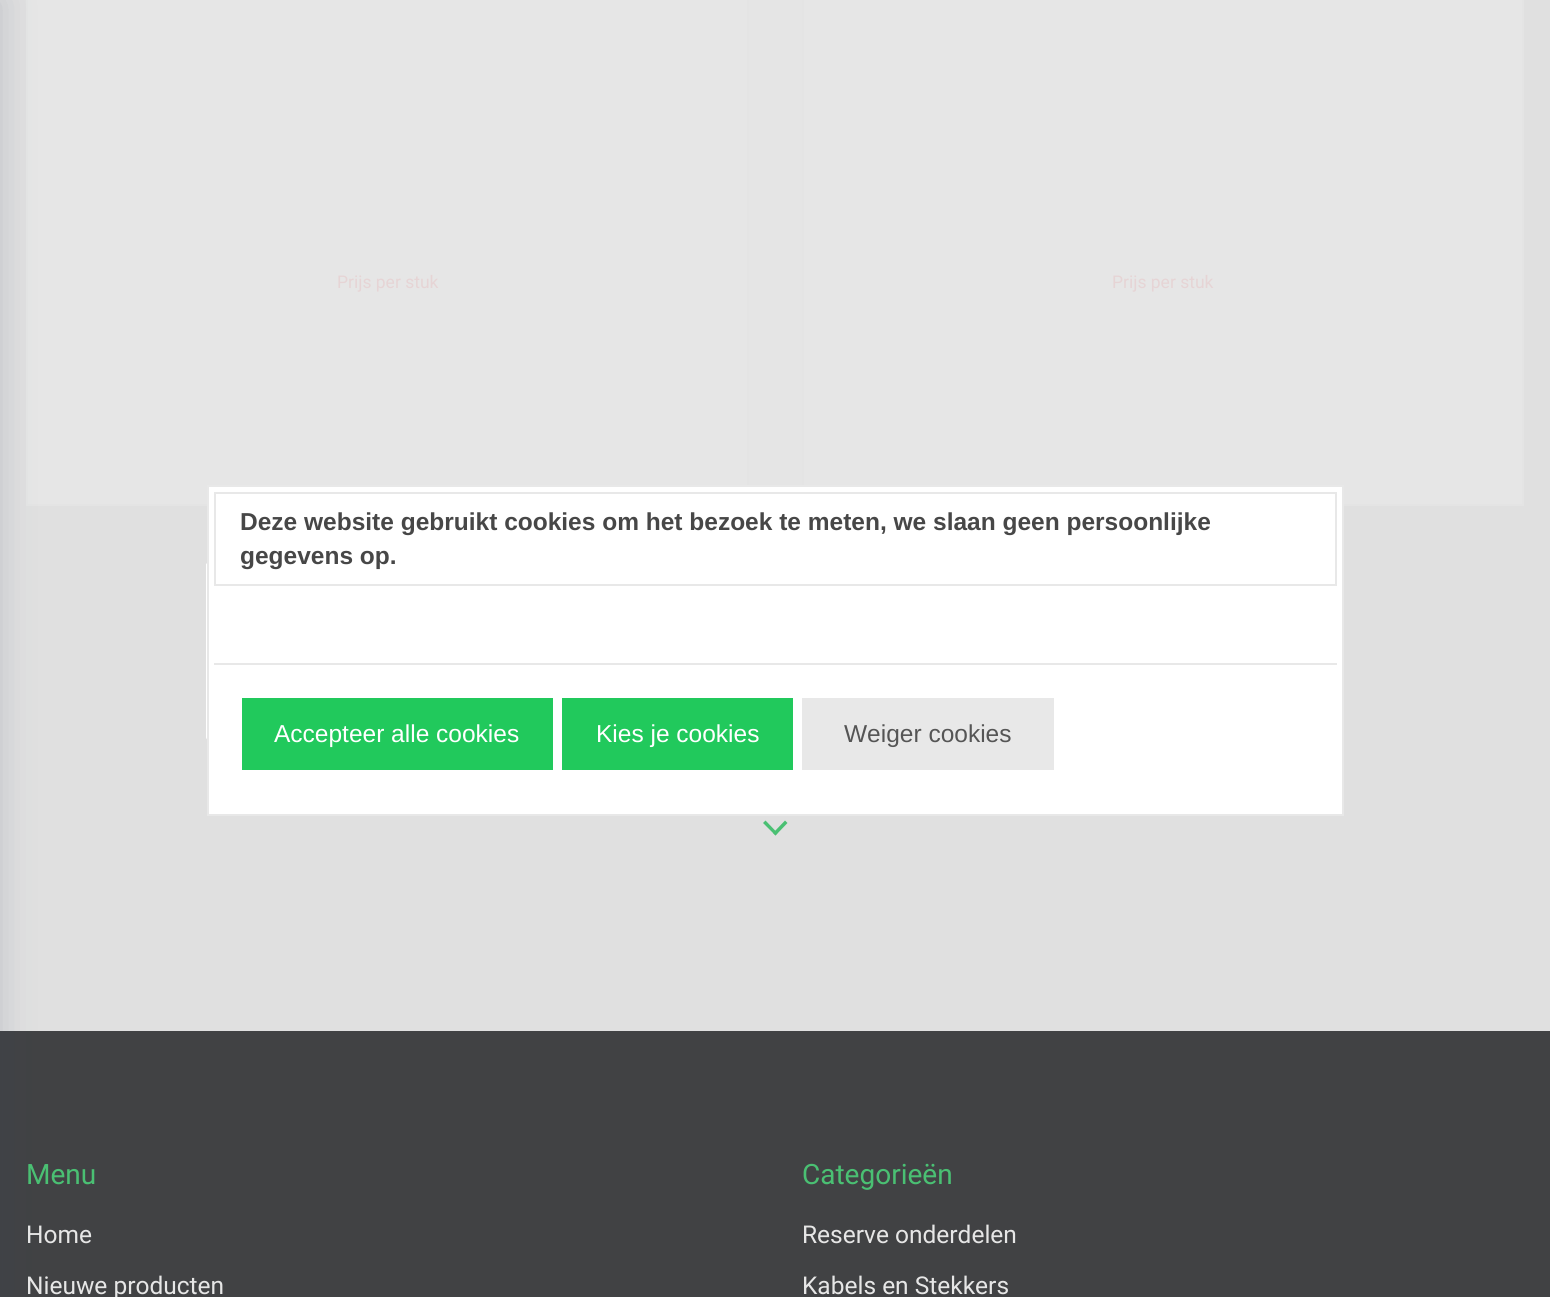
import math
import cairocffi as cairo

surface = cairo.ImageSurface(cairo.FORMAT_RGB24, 1550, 1297)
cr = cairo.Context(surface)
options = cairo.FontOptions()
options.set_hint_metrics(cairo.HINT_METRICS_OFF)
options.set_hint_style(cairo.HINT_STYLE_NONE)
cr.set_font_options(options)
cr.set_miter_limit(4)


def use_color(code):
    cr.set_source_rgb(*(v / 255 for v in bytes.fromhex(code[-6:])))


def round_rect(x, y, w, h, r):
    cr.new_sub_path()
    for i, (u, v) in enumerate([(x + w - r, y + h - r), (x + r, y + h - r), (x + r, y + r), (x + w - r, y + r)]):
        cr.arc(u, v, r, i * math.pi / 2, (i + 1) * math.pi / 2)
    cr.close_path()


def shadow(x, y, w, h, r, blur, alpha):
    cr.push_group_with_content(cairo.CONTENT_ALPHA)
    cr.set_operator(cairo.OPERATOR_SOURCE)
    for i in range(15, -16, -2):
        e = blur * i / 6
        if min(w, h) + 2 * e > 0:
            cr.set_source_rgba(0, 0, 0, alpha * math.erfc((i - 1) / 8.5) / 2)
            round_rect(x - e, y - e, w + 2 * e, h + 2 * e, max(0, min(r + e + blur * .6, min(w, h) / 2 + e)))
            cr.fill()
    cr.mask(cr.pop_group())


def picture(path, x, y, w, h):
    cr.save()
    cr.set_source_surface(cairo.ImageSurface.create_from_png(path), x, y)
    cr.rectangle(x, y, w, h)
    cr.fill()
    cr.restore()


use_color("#e0e0e0")
cr.paint()
use_color("#e5e5e5")
cr.rectangle(749, 0, 53, 485)
cr.fill()
cr.rectangle(27, -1, 721, 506)
use_color("#e4e4e4")
cr.stroke()
use_color("#e6e6e6")
cr.rectangle(28, 0, 719, 504)
cr.fill()
use_color("#414244")
cr.rectangle(0, 1031, 1550, 266)
cr.fill()
use_color("#324060")
shadow(-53, 0, 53, 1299, 0, 17.5, 0.2)
cr.select_font_face("Roboto")
cr.set_font_size(17.5)
use_color("#e6d4d5")
cr.move_to(337, 288)
cr.show_text("Prijs per stuk")
cr.rectangle(803, -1, 720, 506)
use_color("#e4e4e4")
cr.stroke()
use_color("#e6e6e6")
cr.rectangle(804, 0, 718, 504)
cr.fill()
use_color("#e6d4d5")
cr.move_to(1112, 288)
cr.show_text("Prijs per stuk")
use_color("#4ac073")
cr.new_path()
cr.move_to(785, 820.5)
cr.line_to(787.5, 823)
cr.line_to(775.5, 835.5)
cr.line_to(773, 833)
cr.close_path()
cr.fill()
cr.new_path()
cr.move_to(765.5, 820.5)
cr.line_to(777.5, 833)
cr.line_to(775.5, 835.5)
cr.line_to(763, 823)
cr.close_path()
cr.fill()
use_color("#ffffff")
cr.rectangle(208, 486, 1135, 329)
cr.fill_preserve()
use_color("#e8e8e8")
cr.stroke()
picture("img1.png", 206, 563, 1, 176)
cr.rectangle(215, 493, 1121, 92)
cr.stroke()
cr.select_font_face("Liberation Sans", cairo.FONT_SLANT_NORMAL, cairo.FONT_WEIGHT_BOLD)
cr.set_font_size(24.5)
use_color("#474747")
cr.move_to(240, 530)
cr.show_text("Deze website gebruikt cookies om het bezoek te meten, we slaan geen persoonlijke")
cr.move_to(240, 564)
cr.show_text("gegevens op.")
use_color("#e8e8e8")
cr.rectangle(214, 663, 1123, 2)
cr.fill()
use_color("#21c95c")
cr.rectangle(242, 698, 311, 72)
cr.fill()
cr.select_font_face("Liberation Sans")
use_color("#ffffff")
cr.move_to(274, 742)
cr.show_text("Accepteer alle cookies")
use_color("#21c95c")
cr.rectangle(562, 698, 231, 72)
cr.fill()
use_color("#ffffff")
cr.move_to(596, 742)
cr.show_text("Kies je cookies")
use_color("#e8e8e8")
cr.rectangle(802, 698, 252, 72)
cr.fill()
use_color("#555555")
cr.move_to(844, 742)
cr.show_text("Weiger cookies")
cr.select_font_face("Roboto")
cr.set_font_size(28)
use_color("#4ac073")
cr.move_to(26, 1184)
cr.show_text("Menu")
cr.set_font_size(24.5)
use_color("#e6e6e6")
cr.move_to(26, 1243)
cr.show_text("Home")
cr.move_to(26, 1294)
cr.show_text("Nieuwe producten")
cr.set_font_size(28)
use_color("#4ac073")
cr.move_to(802, 1184)
cr.show_text("Categorieën")
cr.set_font_size(24.5)
use_color("#e6e6e6")
cr.move_to(802, 1243)
cr.show_text("Reserve onderdelen")
cr.move_to(802, 1294)
cr.show_text("Kabels en Stekkers")
surface.write_to_png("result.png")
